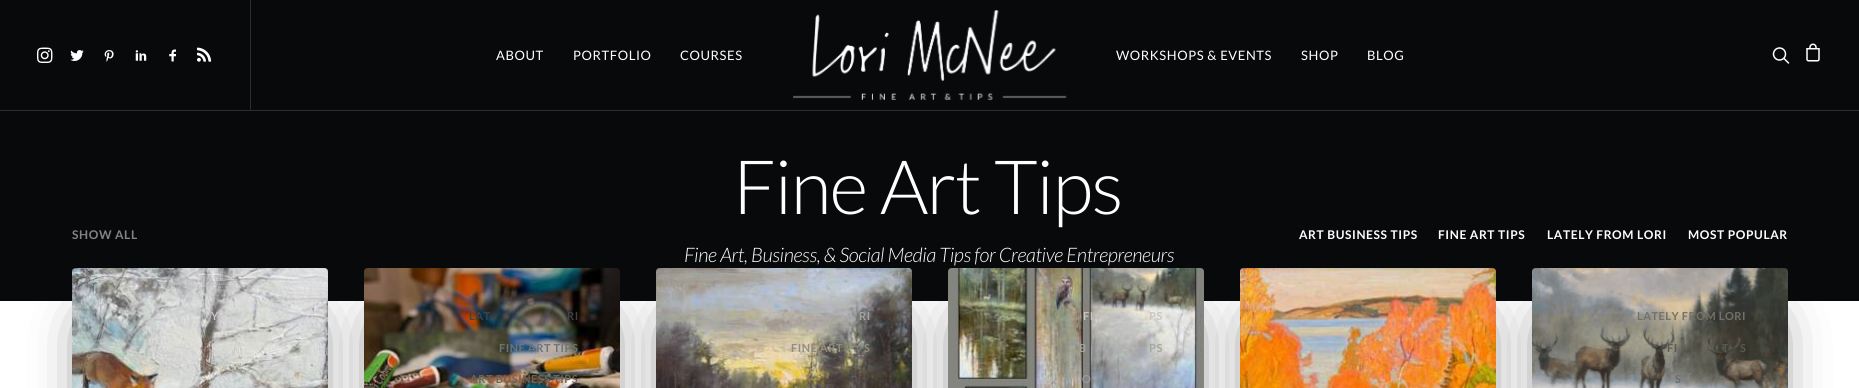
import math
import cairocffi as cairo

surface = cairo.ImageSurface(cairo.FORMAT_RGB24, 1859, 388)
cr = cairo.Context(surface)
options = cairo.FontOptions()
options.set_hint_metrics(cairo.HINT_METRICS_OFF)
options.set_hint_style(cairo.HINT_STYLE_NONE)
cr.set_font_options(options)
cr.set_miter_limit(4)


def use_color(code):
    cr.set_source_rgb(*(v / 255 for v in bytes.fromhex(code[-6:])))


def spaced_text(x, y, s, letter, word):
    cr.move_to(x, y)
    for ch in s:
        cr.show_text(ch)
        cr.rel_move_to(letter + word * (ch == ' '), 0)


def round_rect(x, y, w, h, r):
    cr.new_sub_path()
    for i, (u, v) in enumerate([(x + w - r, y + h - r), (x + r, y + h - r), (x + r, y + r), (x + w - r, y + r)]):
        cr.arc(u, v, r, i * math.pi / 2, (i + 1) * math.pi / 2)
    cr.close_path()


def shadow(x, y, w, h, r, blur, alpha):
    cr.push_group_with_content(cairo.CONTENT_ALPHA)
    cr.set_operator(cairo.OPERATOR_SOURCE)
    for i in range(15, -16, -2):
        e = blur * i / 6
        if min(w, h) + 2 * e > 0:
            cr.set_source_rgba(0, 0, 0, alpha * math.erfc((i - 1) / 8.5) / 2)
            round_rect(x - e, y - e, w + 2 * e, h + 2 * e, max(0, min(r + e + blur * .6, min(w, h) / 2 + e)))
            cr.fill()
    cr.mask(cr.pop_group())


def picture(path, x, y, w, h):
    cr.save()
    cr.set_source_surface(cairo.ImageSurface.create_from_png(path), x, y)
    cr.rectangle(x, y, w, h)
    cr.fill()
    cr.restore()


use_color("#ffffff")
cr.paint()
use_color("#08090a")
cr.rectangle(0, 0, 1859, 301)
cr.fill()
use_color("#2d2e2f")
cr.rectangle(0, 110, 1859, 1)
cr.fill()
cr.rectangle(250, 0, 1, 110)
cr.fill()
picture("img1.png", 37, 47, 16, 16)
picture("img2.png", 70, 50, 14, 11)
picture("img3.png", 104, 50, 10, 12)
picture("img4.png", 135, 50, 12, 11)
picture("img5.png", 169, 49, 7, 13)
picture("img6.png", 197, 47, 15, 15)
cr.select_font_face("Lato")
cr.set_font_size(13)
use_color("#ffffff")
spaced_text(496, 60, "ABOUT", 0.6, 0)
spaced_text(573, 60, "PORTFOLIO", 0.6, 0)
spaced_text(680, 60, "COURSES", 0.6, 0)
picture("img7.png", 793, 10, 274, 90)
spaced_text(1116, 60, "WORKSHOPS & EVENTS", 0.6, 0)
spaced_text(1301, 60, "SHOP", 0.6, 0)
spaced_text(1367, 60, "BLOG", 0.6, 0)
picture("img8.png", 1772, 47, 18, 17)
picture("img9.png", 1806, 43, 14, 19)
cr.select_font_face("Lato Light")
cr.set_font_size(75)
spaced_text(733, 214, "Fine", -1.5, 0)
spaced_text(880, 214, "Art", -1.5, 0)
spaced_text(994, 214, "Tips", -1.5, 0)
cr.select_font_face("Lato Light", cairo.FONT_SLANT_ITALIC)
cr.set_font_size(20)
spaced_text(684, 262, "Fine Art, Business, & Social Media Tips for Creative Entrepreneurs", -0.4, 0)
use_color("#000000")
shadow(102, 328, 196, 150, 0, 30, 1)
cr.select_font_face("Lato", cairo.FONT_SLANT_NORMAL, cairo.FONT_WEIGHT_BOLD)
cr.set_font_size(12)
use_color("#838484")
spaced_text(72, 239, "SHOW ALL", 0.6, 0)
picture("img10.png", 72, 268, 256, 120)
use_color("#000000")
shadow(394, 328, 196, 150, 0, 30, 1)
picture("img11.png", 364, 268, 256, 120)
shadow(686, 328, 196, 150, 0, 30, 1)
picture("img12.png", 656, 268, 256, 120)
shadow(978, 328, 196, 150, 0, 30, 1)
picture("img13.png", 948, 268, 256, 120)
shadow(1270, 328, 196, 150, 0, 30, 1)
use_color("#ffffff")
spaced_text(1299, 239, "ART BUSINESS TIPS", 0.6, 0)
picture("img14.png", 1240, 268, 256, 120)
use_color("#000000")
shadow(1562, 328, 196, 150, 0, 30, 1)
use_color("#ffffff")
spaced_text(1438, 239, "FINE ART TIPS", 0.6, 0)
spaced_text(1547, 239, "LATELY FROM LORI", 0.6, 0)
spaced_text(1688, 239, "MOST POPULAR", 0.6, 0)
cr.set_font_size(11)
use_color("#cbcbc9")
spaced_text(211, 320, "Y", 0.5, 0)
use_color("#45423d")
spaced_text(469, 320, "LAT", 0.5, 0)
spaced_text(567, 320, "RI", 0.5, 0)
use_color("#6c7579")
spaced_text(499, 352, "FINE ART TIPS", 0.5, 0)
use_color("#756352")
spaced_text(470, 383, "ART BUSINESS TIPS", 0.5, 0)
use_color("#a6a49f")
spaced_text(859, 320, "RI", 0.5, 0)
use_color("#928c7c")
spaced_text(791, 352, "FINE ART", 0.5, 0)
spaced_text(864, 352, "S", 0.5, 0)
use_color("#c8c6c0")
spaced_text(1083, 320, "FI", 0.5, 0)
spaced_text(1149, 320, "PS", 0.5, 0)
use_color("#a6a49f")
spaced_text(1079, 352, "B", 0.5, 0)
spaced_text(1149, 352, "PS", 0.5, 0)
use_color("#969aa0")
spaced_text(1082, 383, "O", 0.5, 0)
picture("img15.png", 1532, 268, 256, 120)
use_color("#747166")
spaced_text(1637, 320, "LATELY FROM LORI", 0.5, 0)
use_color("#5a594f")
spaced_text(1667, 352, "FI", 0.5, 0)
spaced_text(1722, 352, "T", 0.5, 0)
spaced_text(1740, 352, "S", 0.5, 0)
use_color("#6e6d67")
spaced_text(1675, 383, "S", 0.5, 0)
surface.write_to_png("result.png")
